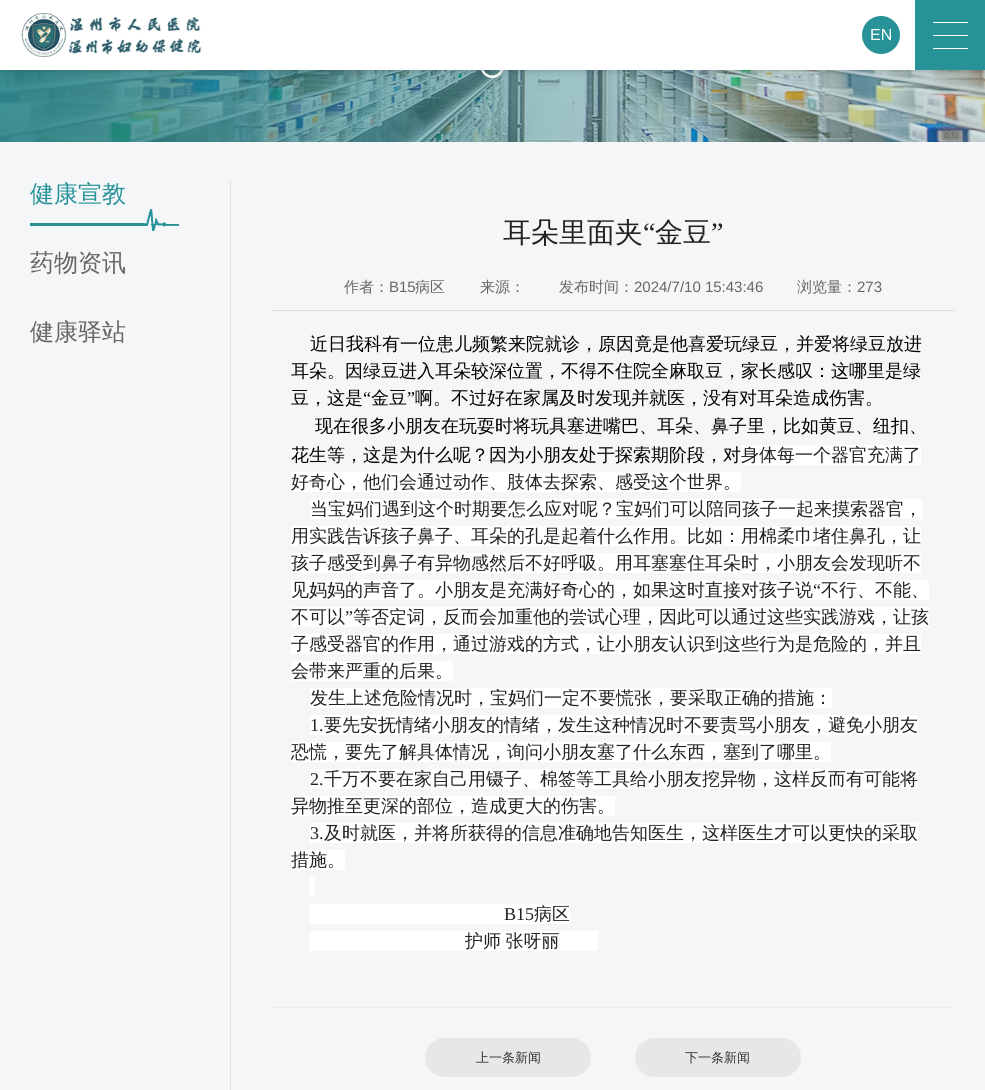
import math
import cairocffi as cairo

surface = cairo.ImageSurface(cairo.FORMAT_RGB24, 985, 1090)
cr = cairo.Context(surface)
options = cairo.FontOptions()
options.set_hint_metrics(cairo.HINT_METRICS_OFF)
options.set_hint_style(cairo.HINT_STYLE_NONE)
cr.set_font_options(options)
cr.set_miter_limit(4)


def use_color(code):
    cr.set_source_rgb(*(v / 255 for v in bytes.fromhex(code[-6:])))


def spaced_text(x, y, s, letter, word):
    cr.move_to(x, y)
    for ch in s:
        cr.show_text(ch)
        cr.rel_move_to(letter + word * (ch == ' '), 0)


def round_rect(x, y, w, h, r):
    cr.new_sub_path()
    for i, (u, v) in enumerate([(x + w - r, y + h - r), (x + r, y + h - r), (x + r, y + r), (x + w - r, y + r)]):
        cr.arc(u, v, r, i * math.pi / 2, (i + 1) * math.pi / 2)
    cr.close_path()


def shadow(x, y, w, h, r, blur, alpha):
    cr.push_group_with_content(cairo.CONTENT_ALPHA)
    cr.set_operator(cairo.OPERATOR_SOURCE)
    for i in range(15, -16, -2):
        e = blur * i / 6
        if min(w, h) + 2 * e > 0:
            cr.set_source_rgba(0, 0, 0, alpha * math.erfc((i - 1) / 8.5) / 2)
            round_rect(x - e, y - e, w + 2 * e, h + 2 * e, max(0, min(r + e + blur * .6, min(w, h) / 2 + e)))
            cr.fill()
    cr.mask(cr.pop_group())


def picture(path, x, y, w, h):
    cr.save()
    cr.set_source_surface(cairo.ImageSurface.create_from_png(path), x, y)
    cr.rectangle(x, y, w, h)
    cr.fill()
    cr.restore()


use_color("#ffffff")
cr.paint()
picture("img2.png", 0, 70, 985, 72)
picture("img3.png", 481, 70, 23, 8)
use_color("#000000")
shadow(0, 0, 985, 70, 0, 4, 0.25)
use_color("#ffffff")
cr.rectangle(0, 0, 915, 70)
cr.fill()
picture("img1.png", 21, 13, 180, 44)
use_color("#279399")
cr.arc(881, 35, 19, 0, 2 * math.pi)
cr.fill()
cr.select_font_face("Liberation Sans")
cr.set_font_size(16)
use_color("#ffffff")
cr.move_to(870, 40)
cr.show_text("EN")
use_color("#279399")
cr.rectangle(915, 0, 70, 70)
cr.fill()
use_color("#ffffff")
cr.rectangle(933, 35, 35, 1)
cr.fill()
cr.rectangle(933, 22, 35, 1)
cr.fill()
cr.rectangle(933, 48, 35, 1)
cr.fill()
use_color("#f4f6f8")
cr.rectangle(0, 142, 985, 948)
cr.fill()
use_color("#e0e0e0")
cr.rectangle(230, 182, 1, 908)
cr.fill()
picture("img4.png", 30, 209, 149, 22)
cr.select_font_face("WenQuanYi Zen Hei Medium")
cr.set_font_size(24)
use_color("#279399")
cr.move_to(30, 202)
cr.show_text("健康宣教")
use_color("#666666")
cr.move_to(30, 271)
cr.show_text("药物资讯")
cr.move_to(30, 340)
cr.show_text("健康驿站")
cr.set_font_size(28)
use_color("#212121")
cr.move_to(503, 242)
cr.show_text("耳朵里面夹")
cr.select_font_face("Liberation Serif")
cr.move_to(643, 242)
cr.show_text("“")
cr.select_font_face("WenQuanYi Zen Hei Medium")
cr.move_to(655, 242)
cr.show_text("金豆")
cr.select_font_face("Liberation Serif")
cr.move_to(711, 242)
cr.show_text("”")
use_color("#dddddd")
cr.rectangle(271, 310, 684, 1)
cr.fill()
cr.select_font_face("WenQuanYi Zen Hei Medium")
cr.set_font_size(15)
use_color("#666666")
cr.move_to(344, 292)
cr.show_text("作者：")
cr.select_font_face("Liberation Sans")
cr.move_to(389, 292)
cr.show_text("B15")
cr.select_font_face("WenQuanYi Zen Hei Medium")
cr.move_to(415, 292)
cr.show_text("病区")
cr.move_to(480, 292)
cr.show_text("来源：")
cr.move_to(559, 292)
cr.show_text("发布时间：")
cr.select_font_face("Liberation Sans")
cr.move_to(634, 292)
cr.show_text("2024/7/10 15:43:46")
cr.select_font_face("WenQuanYi Zen Hei Medium")
cr.move_to(797, 292)
cr.show_text("浏览量：")
cr.select_font_face("Liberation Sans")
cr.move_to(857, 292)
cr.show_text("273")
cr.select_font_face("WenQuanYi Zen Hei Medium")
cr.set_font_size(18)
use_color("#000000")
cr.move_to(310, 350)
cr.show_text("近日我科有一位患儿频繁来院就诊，原因竟是他喜爱玩绿豆，并爱将绿豆放进")
cr.move_to(291, 377)
cr.show_text("耳朵。因绿豆进入耳朵较深位置，不得不住院全麻取豆，家长感叹：这哪里是绿")
cr.move_to(291, 404)
cr.show_text("豆，这是")
cr.select_font_face("Liberation Serif")
cr.move_to(363, 404)
cr.show_text("“")
cr.select_font_face("WenQuanYi Zen Hei Medium")
cr.move_to(371, 404)
cr.show_text("金豆")
cr.select_font_face("Liberation Serif")
cr.move_to(407, 404)
cr.show_text("”")
cr.select_font_face("WenQuanYi Zen Hei Medium")
cr.move_to(415, 404)
cr.show_text("啊。不过好在家属及时发现并就医，没有对耳朵造成伤害。")
cr.move_to(315, 432)
cr.show_text("现在很多小朋友在玩耍时将玩具塞进嘴巴、耳朵、鼻子里，比如黄豆、纽扣、")
cr.move_to(291, 461)
cr.show_text("花生等，这是为什么呢？因为小朋友处于探索期阶段，对")
use_color("#ffffff")
cr.rectangle(741, 445, 180, 20)
cr.fill()
use_color("#212121")
cr.move_to(741, 461)
cr.show_text("身体每一个器官充满了")
use_color("#ffffff")
cr.rectangle(291, 472, 450, 20)
cr.fill()
use_color("#212121")
cr.move_to(291, 488)
cr.show_text("好奇心，他们会通过动作、肢体去探索、感受这个世界。")
use_color("#ffffff")
cr.rectangle(310, 499, 612, 20)
cr.fill()
use_color("#212121")
cr.move_to(310, 515)
cr.show_text("当宝妈们遇到这个时期要怎么应对呢？宝妈们可以陪同孩子一起来摸索器官，")
use_color("#ffffff")
cr.rectangle(291, 526, 630, 20)
cr.fill()
use_color("#212121")
cr.move_to(291, 542)
cr.show_text("用实践告诉孩子鼻子、耳朵的孔是起着什么作用。比如：用棉柔巾堵住鼻孔，让")
use_color("#ffffff")
cr.rectangle(291, 553, 630, 20)
cr.fill()
use_color("#212121")
cr.move_to(291, 569)
cr.show_text("孩子感受到鼻子有异物感然后不好呼吸。用耳塞塞住耳朵时，小朋友会发现听不")
use_color("#ffffff")
cr.rectangle(291, 580, 638, 20)
cr.fill()
use_color("#212121")
cr.move_to(291, 596)
cr.show_text("见妈妈的声音了。小朋友是充满好奇心的，如果这时直接对孩子说")
cr.select_font_face("Liberation Serif")
cr.move_to(813, 596)
cr.show_text("“")
cr.select_font_face("WenQuanYi Zen Hei Medium")
cr.move_to(821, 596)
cr.show_text("不行、不能、")
use_color("#ffffff")
cr.rectangle(291, 607, 638, 20)
cr.fill()
use_color("#212121")
cr.move_to(291, 623)
cr.show_text("不可以")
cr.select_font_face("Liberation Serif")
cr.move_to(345, 623)
cr.show_text("”")
cr.select_font_face("WenQuanYi Zen Hei Medium")
cr.move_to(353, 623)
cr.show_text("等否定词，反而会加重他的尝试心理，因此可以通过这些实践游戏，让孩")
use_color("#ffffff")
cr.rectangle(291, 634, 630, 20)
cr.fill()
use_color("#212121")
cr.move_to(291, 650)
cr.show_text("子感受器官的作用，通过游戏的方式，让小朋友认识到这些行为是危险的，并且")
use_color("#ffffff")
cr.rectangle(291, 661, 162, 20)
cr.fill()
use_color("#212121")
cr.move_to(291, 677)
cr.show_text("会带来严重的后果。")
use_color("#ffffff")
cr.rectangle(310, 688, 522, 20)
cr.fill()
use_color("#212121")
cr.move_to(310, 704)
cr.show_text("发生上述危险情况时，宝妈们一定不要慌张，要采取正确的措施：")
use_color("#ffffff")
cr.rectangle(310, 715, 608, 20)
cr.fill()
cr.select_font_face("Liberation Serif")
use_color("#212121")
cr.move_to(310, 731)
cr.show_text("1.")
cr.select_font_face("WenQuanYi Zen Hei Medium")
cr.move_to(324, 731)
cr.show_text("要先安抚情绪小朋友的情绪，发生这种情况时不要责骂小朋友，避免小朋友")
use_color("#ffffff")
cr.rectangle(291, 742, 540, 20)
cr.fill()
use_color("#212121")
cr.move_to(291, 758)
cr.show_text("恐慌，要先了解具体情况，询问小朋友塞了什么东西，塞到了哪里。")
use_color("#ffffff")
cr.rectangle(310, 769, 608, 20)
cr.fill()
cr.select_font_face("Liberation Serif")
use_color("#212121")
cr.move_to(310, 785)
cr.show_text("2.")
cr.select_font_face("WenQuanYi Zen Hei Medium")
cr.move_to(324, 785)
cr.show_text("千万不要在家自己用镊子、棉签等工具给小朋友挖异物，这样反而有可能将")
use_color("#ffffff")
cr.rectangle(291, 796, 324, 20)
cr.fill()
use_color("#212121")
cr.move_to(291, 812)
cr.show_text("异物推至更深的部位，造成更大的伤害。")
use_color("#ffffff")
cr.rectangle(310, 823, 608, 20)
cr.fill()
cr.select_font_face("Liberation Serif")
use_color("#212121")
cr.move_to(310, 839)
cr.show_text("3.")
cr.select_font_face("WenQuanYi Zen Hei Medium")
cr.move_to(324, 839)
cr.show_text("及时就医，并将所获得的信息准确地告知医生，这样医生才可以更快的采取")
use_color("#ffffff")
cr.rectangle(291, 850, 54, 20)
cr.fill()
use_color("#212121")
cr.move_to(291, 866)
cr.show_text("措施。")
use_color("#ffffff")
cr.rectangle(310, 877, 5, 20)
cr.fill()
cr.rectangle(310, 904, 260, 20)
cr.fill()
cr.select_font_face("Liberation Serif")
use_color("#212121")
cr.move_to(504, 920)
cr.show_text("B15")
cr.select_font_face("WenQuanYi Zen Hei Medium")
cr.move_to(534, 920)
cr.show_text("病区")
use_color("#ffffff")
cr.rectangle(310, 931, 288, 20)
cr.fill()
use_color("#212121")
spaced_text(465, 947, "护师 张呀丽", 0, -1)
use_color("#edeff1")
cr.rectangle(271, 1007, 684, 1)
cr.fill()
use_color("#e7e7e7")
round_rect(425, 1038, 166, 39, 19.5)
cr.fill()
cr.set_font_size(13)
use_color("#333333")
cr.move_to(476, 1062)
cr.show_text("上一条新闻")
use_color("#e7e7e7")
round_rect(635, 1038, 166, 39, 19.5)
cr.fill()
use_color("#333333")
cr.move_to(685, 1062)
cr.show_text("下一条新闻")
surface.write_to_png("result.png")
